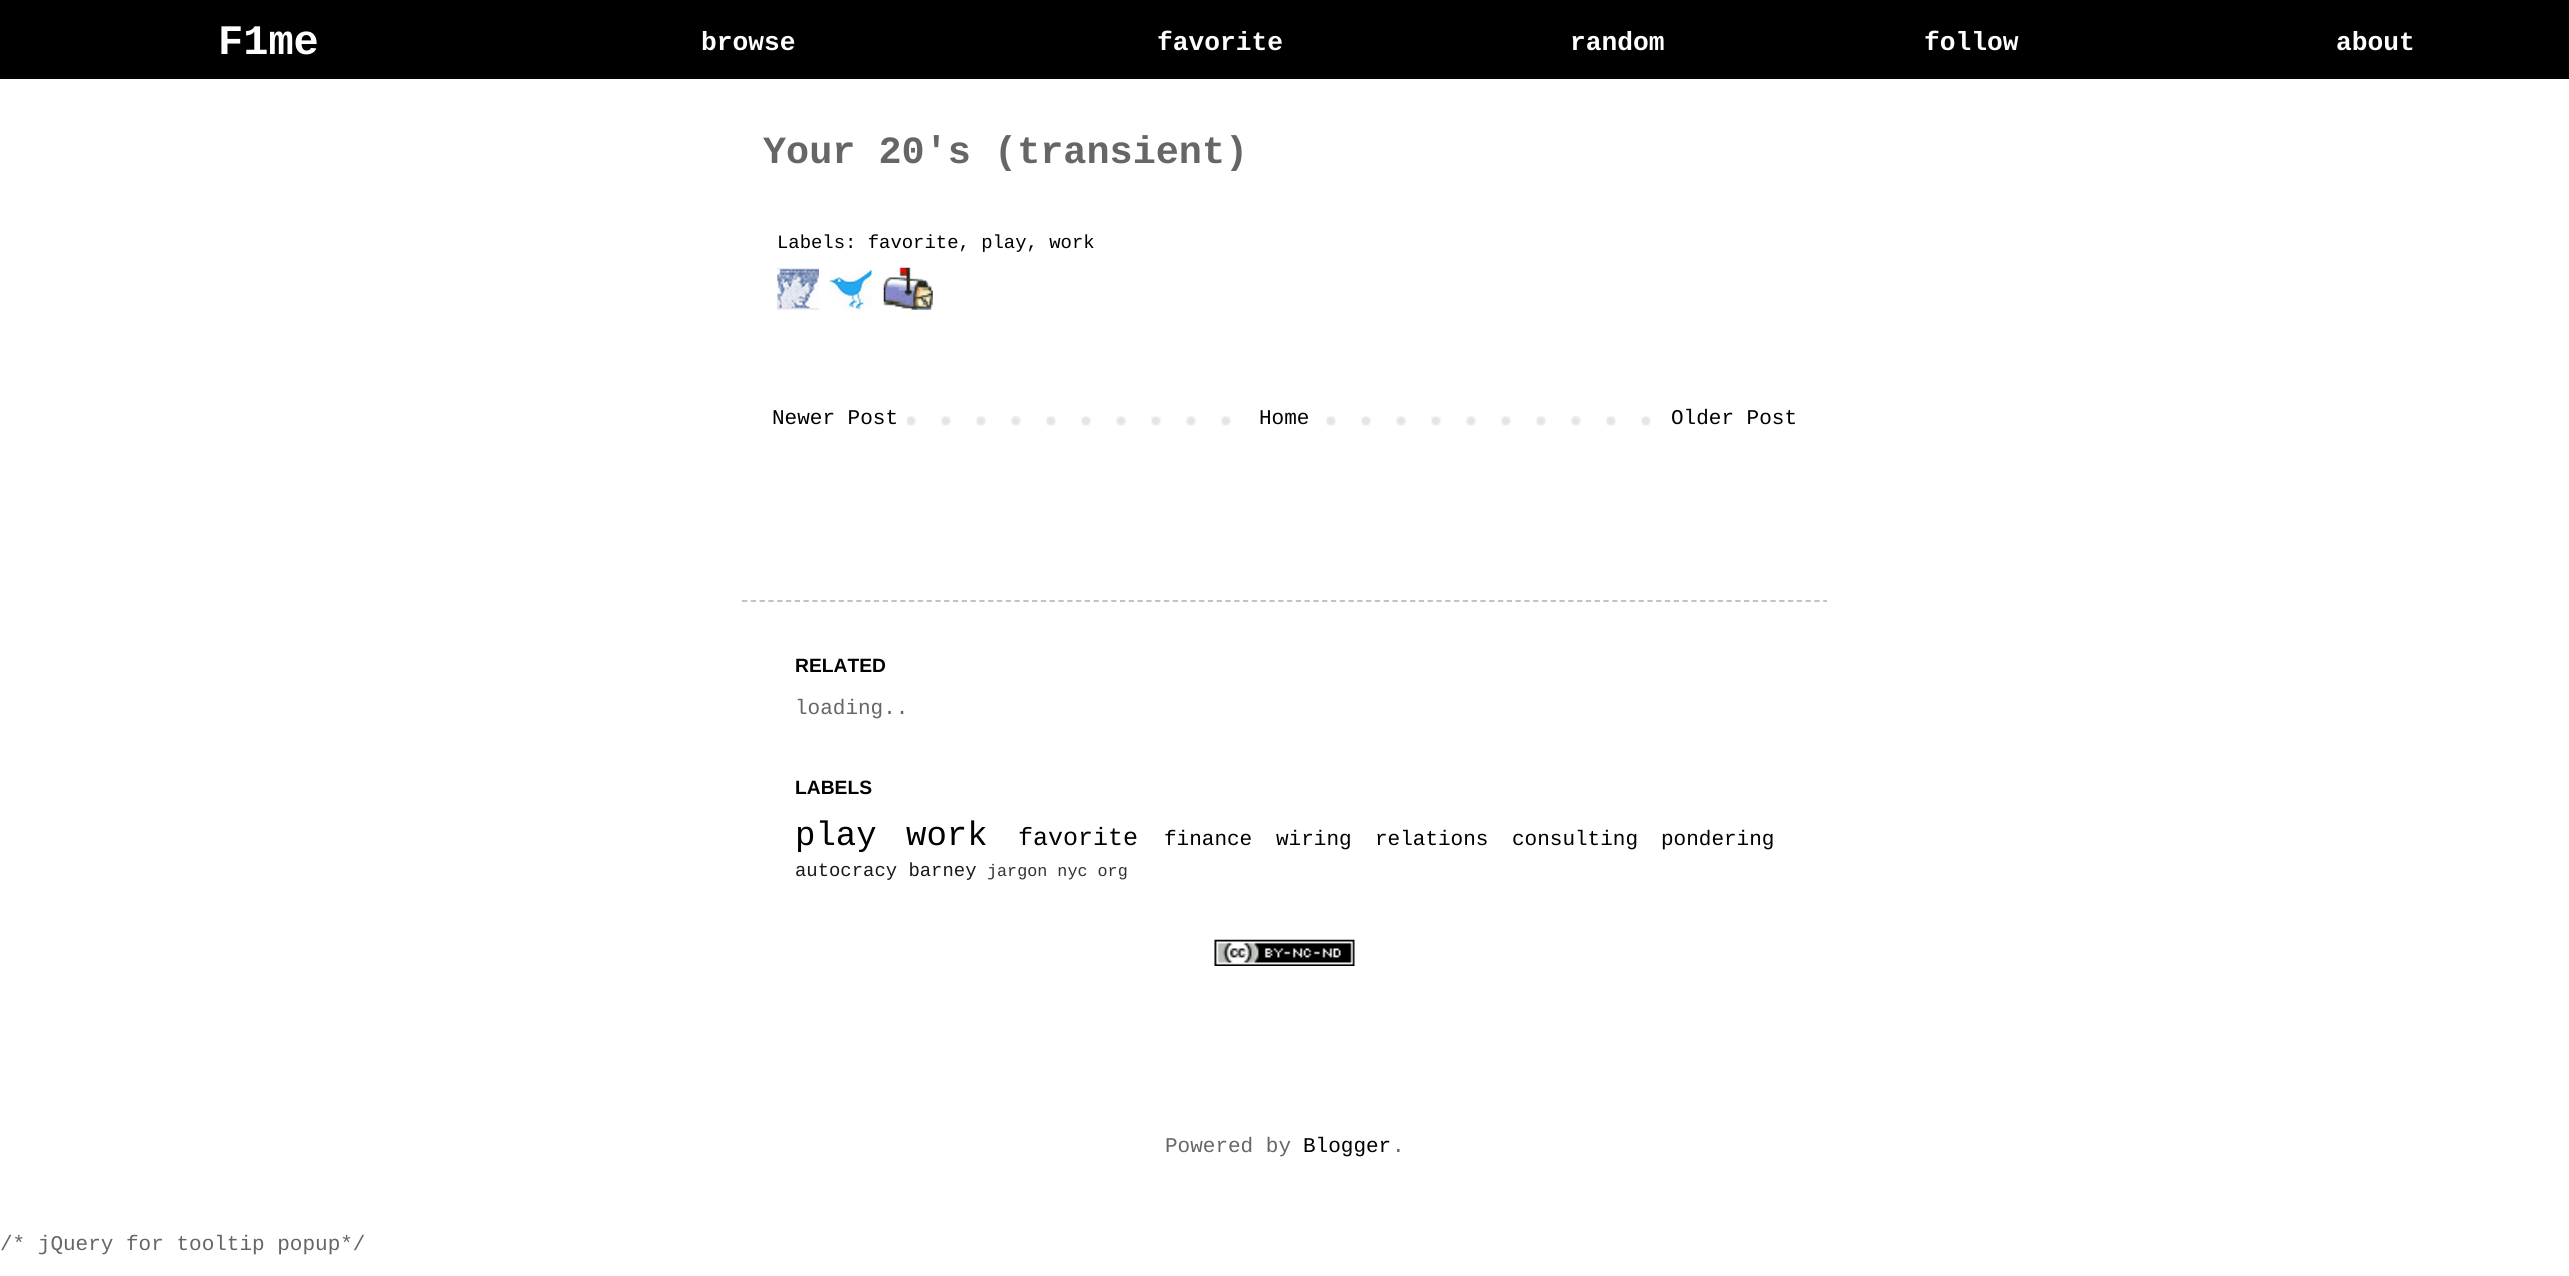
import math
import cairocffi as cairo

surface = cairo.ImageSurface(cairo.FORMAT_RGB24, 2569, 1276)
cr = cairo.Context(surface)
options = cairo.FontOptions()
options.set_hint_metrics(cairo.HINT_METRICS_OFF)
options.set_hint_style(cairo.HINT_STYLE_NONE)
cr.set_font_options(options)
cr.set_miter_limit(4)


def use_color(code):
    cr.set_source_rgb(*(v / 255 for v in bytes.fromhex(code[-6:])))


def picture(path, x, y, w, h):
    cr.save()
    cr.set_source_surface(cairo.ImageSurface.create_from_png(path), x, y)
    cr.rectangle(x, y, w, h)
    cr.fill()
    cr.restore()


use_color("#ffffff")
cr.paint()
use_color("#000000")
cr.rectangle(0, 0, 2569, 79)
cr.fill()
cr.select_font_face("Liberation Mono", cairo.FONT_SLANT_NORMAL, cairo.FONT_WEIGHT_BOLD)
cr.set_font_size(42)
use_color("#ffffff")
cr.move_to(218, 54)
cr.show_text("F1me")
cr.set_font_size(26.25)
cr.move_to(701, 50)
cr.show_text("browse")
cr.move_to(1157, 50)
cr.show_text("favorite")
cr.move_to(1570, 50)
cr.show_text("random")
cr.move_to(1924, 50)
cr.show_text("follow")
cr.move_to(2336, 50)
cr.show_text("about")
cr.set_font_size(38.5)
use_color("#666666")
cr.move_to(763, 163)
cr.show_text("Your 20's (transient)")
cr.select_font_face("Liberation Mono")
cr.set_font_size(18.9)
use_color("#000000")
cr.move_to(777, 248)
cr.show_text("Labels: favorite, play, work")
picture("img1.png", 777, 267, 42, 43)
picture("img2.png", 829, 268, 43, 42)
picture("img3.png", 883, 267, 50, 43)
picture("img4.png", 907, 416, 744, 10)
cr.set_font_size(21)
cr.move_to(772, 424)
cr.show_text("Newer Post")
use_color("#ffffff")
cr.rectangle(1256, 416, 46, 10)
cr.fill()
use_color("#000000")
cr.move_to(1259, 424)
cr.show_text("Home")
cr.move_to(1671, 424)
cr.show_text("Older Post")
cr.new_path()
cr.move_to(742, 601)
cr.line_to(1827, 601)
use_color("#bbbbbb")
cr.set_line_width(1.8)
cr.set_dash([5.25, 3.54])
cr.stroke()
cr.select_font_face("Liberation Sans", cairo.FONT_SLANT_NORMAL, cairo.FONT_WEIGHT_BOLD)
cr.set_font_size(19.25)
use_color("#000000")
cr.move_to(795, 672)
cr.show_text("RELATED")
cr.select_font_face("Liberation Mono")
cr.set_font_size(21)
use_color("#666666")
cr.move_to(795, 714)
cr.show_text("loading..")
cr.select_font_face("Liberation Sans", cairo.FONT_SLANT_NORMAL, cairo.FONT_WEIGHT_BOLD)
cr.set_font_size(19.25)
use_color("#000000")
cr.move_to(795, 794)
cr.show_text("LABELS")
cr.select_font_face("Liberation Mono")
cr.set_font_size(34)
cr.move_to(795, 845)
cr.show_text("play")
cr.move_to(906, 845)
cr.show_text("work")
cr.set_font_size(25)
cr.move_to(1018, 845)
cr.show_text("favorite")
cr.set_font_size(21)
cr.move_to(1164, 845)
cr.show_text("finance")
cr.move_to(1276, 845)
cr.show_text("wiring")
cr.move_to(1375, 845)
cr.show_text("relations")
cr.move_to(1512, 845)
cr.show_text("consulting")
cr.move_to(1661, 845)
cr.show_text("pondering")
cr.set_font_size(18.9)
use_color("#1a1a1a")
cr.move_to(795, 876)
cr.show_text("autocracy barney")
cr.set_font_size(16.75)
use_color("#333333")
cr.move_to(987, 876)
cr.show_text("jargon nyc org")
picture("img5.png", 1214, 939, 141, 27)
cr.set_font_size(21)
use_color("#666666")
cr.move_to(1165, 1152)
cr.show_text("Powered by")
use_color("#000000")
cr.move_to(1303, 1152)
cr.show_text("Blogger")
use_color("#666666")
cr.move_to(1392, 1152)
cr.show_text(".")
cr.move_to(0, 1250)
cr.show_text("/* jQuery for tooltip popup*/")
surface.write_to_png("result.png")
